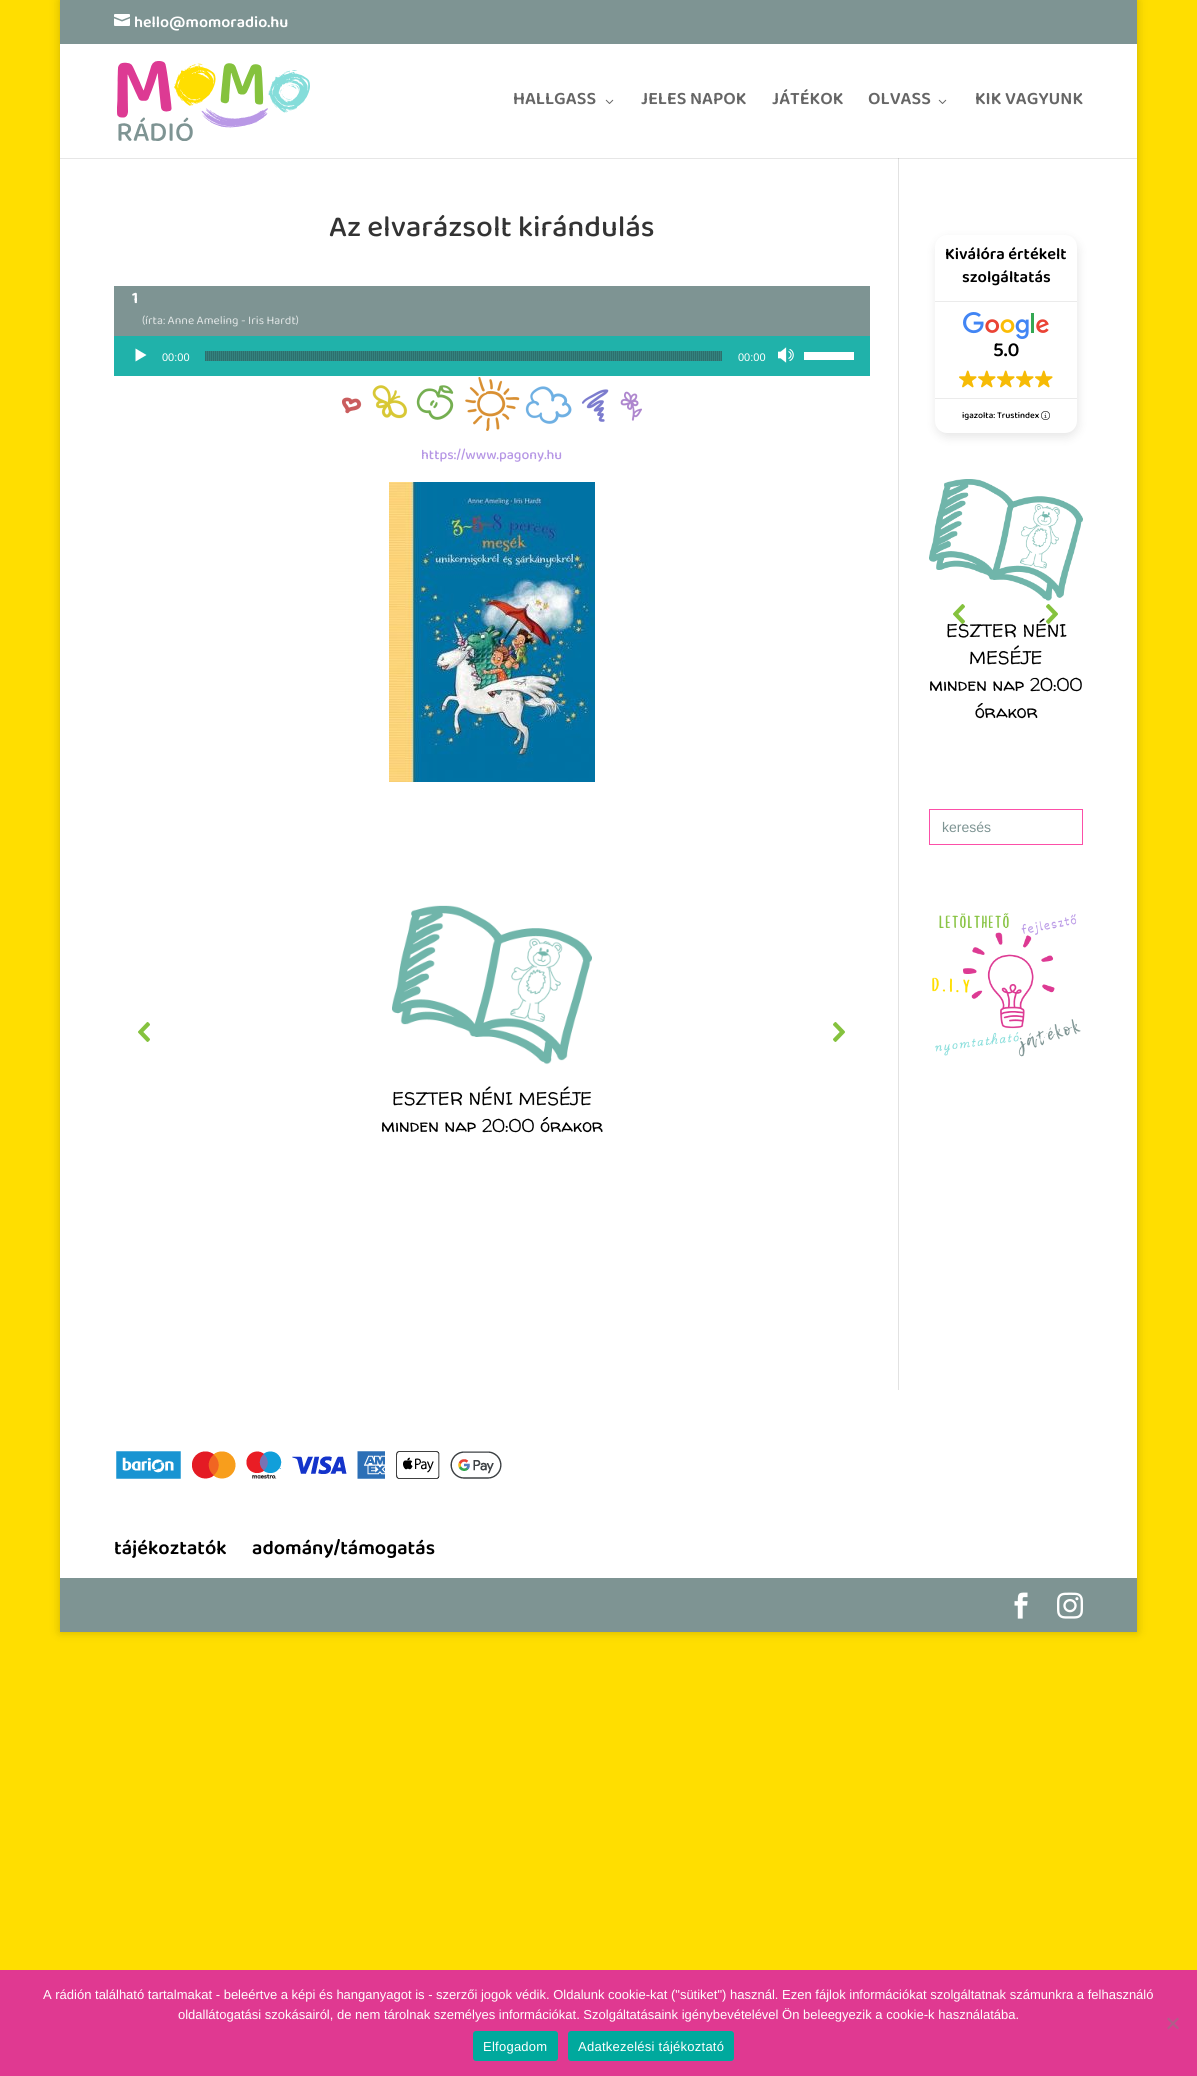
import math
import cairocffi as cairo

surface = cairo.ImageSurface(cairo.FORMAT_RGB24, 1197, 2076)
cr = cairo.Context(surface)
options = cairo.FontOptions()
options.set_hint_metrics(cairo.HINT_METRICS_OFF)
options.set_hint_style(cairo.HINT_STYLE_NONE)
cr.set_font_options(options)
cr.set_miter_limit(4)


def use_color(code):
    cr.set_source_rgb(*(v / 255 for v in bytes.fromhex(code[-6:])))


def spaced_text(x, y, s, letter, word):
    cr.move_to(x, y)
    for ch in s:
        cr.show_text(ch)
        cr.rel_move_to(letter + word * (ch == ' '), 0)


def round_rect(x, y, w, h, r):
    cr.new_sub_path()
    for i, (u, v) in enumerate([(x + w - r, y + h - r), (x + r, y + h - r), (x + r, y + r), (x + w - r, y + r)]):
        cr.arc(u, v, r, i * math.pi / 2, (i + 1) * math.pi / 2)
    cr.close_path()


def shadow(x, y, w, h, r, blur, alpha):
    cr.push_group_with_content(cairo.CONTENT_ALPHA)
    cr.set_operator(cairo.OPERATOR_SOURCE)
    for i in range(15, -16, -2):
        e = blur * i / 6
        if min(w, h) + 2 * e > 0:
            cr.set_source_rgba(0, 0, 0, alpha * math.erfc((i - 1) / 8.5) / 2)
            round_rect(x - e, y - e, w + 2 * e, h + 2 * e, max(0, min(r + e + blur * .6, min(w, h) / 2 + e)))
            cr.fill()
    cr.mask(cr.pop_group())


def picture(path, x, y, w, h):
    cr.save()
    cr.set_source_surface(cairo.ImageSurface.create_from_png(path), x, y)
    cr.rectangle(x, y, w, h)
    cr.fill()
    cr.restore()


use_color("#ffde00")
cr.paint()
use_color("#000000")
shadow(60, 0, 1077, 1632, 0, 5, 0.2)
use_color("#7e9493")
cr.rectangle(60, 0, 1077, 44)
cr.fill()
picture("img1.png", 114, 14, 16, 12)
cr.select_font_face("Baloo Bhaina 2 SemiBold")
cr.set_font_size(16)
use_color("#ffffff")
cr.move_to(134, 27)
cr.show_text("hello@momoradio.hu")
cr.rectangle(60, 44, 1077, 114)
cr.fill()
picture("img2.png", 117, 61, 193, 80)
cr.set_font_size(18)
use_color("#666666")
cr.move_to(513, 104)
cr.show_text("HALLGASS")
picture("img3.png", 605, 99, 9, 5)
cr.move_to(641, 104)
cr.show_text("JELES NAPOK")
cr.move_to(772, 104)
cr.show_text("JÁTÉKOK")
cr.move_to(868, 104)
cr.show_text("OLVASS")
picture("img3.png", 938, 99, 9, 5)
cr.move_to(975, 104)
cr.show_text("KIK VAGYUNK")
use_color("#ffffff")
cr.rectangle(60, 159, 1077, 1419)
cr.fill()
use_color("#e6e6e6")
cr.rectangle(60, 158, 1077, 1)
cr.fill()
use_color("#e2e2e2")
cr.rectangle(898, 158, 1, 1232)
cr.fill()
use_color("#cbcbcb")
cr.rectangle(898, 158, 1, 1)
cr.fill()
cr.select_font_face("Baloo Bhaina 2 Medium")
cr.set_font_size(30)
use_color("#333333")
cr.move_to(329, 236)
cr.show_text("Az elvarázsolt kirándulás")
use_color("#7e9493")
cr.rectangle(114, 286, 756, 50)
cr.fill()
cr.select_font_face("Baloo Bhaina 2", cairo.FONT_SLANT_NORMAL, cairo.FONT_WEIGHT_BOLD)
cr.set_font_size(16)
use_color("#ffffff")
cr.move_to(132, 303)
cr.show_text("1")
cr.select_font_face("Baloo Bhaina 2")
cr.set_font_size(12)
use_color("#dfe4e4")
cr.move_to(142, 324)
cr.show_text("(írta: Anne Ameling - Iris Hardt)")
use_color("#20b2aa")
cr.rectangle(114, 336, 756, 40)
cr.fill()
use_color("#ffffff")
cr.new_path()
cr.move_to(135.5, 348.5)
cr.line_to(146.5, 355)
cr.line_to(135.5, 361.5)
cr.close_path()
cr.fill()
cr.select_font_face("Liberation Sans")
cr.set_font_size(11)
cr.move_to(162, 361)
cr.show_text("00:00")
use_color("#4abab6")
cr.rectangle(205, 351, 517, 10)
cr.fill()
picture("img4.png", 205, 351, 517, 10)
use_color("#ffffff")
cr.move_to(738, 361)
cr.show_text("00:00")
picture("img5.png", 778, 347, 16, 16)
cr.rectangle(804, 352, 50, 8)
cr.fill()
picture("img6.png", 342, 377, 300, 54)
cr.select_font_face("Baloo Bhaina 2 Medium")
cr.set_font_size(14)
use_color("#b697e5")
cr.move_to(421, 459)
cr.show_text("https://www.pagony.hu")
picture("img7.png", 389, 482, 206, 300)
picture("img8.png", 138, 1022, 12, 20)
picture("img9.png", 833, 1022, 12, 20)
picture("img10.png", 392, 905, 200, 160)
cr.select_font_face("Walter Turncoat")
cr.set_font_size(18)
use_color("#000000")
cr.move_to(392, 1105)
cr.show_text("ESZTER NÉNI MESÉJE")
cr.move_to(381, 1132)
cr.show_text("minden nap 20:00 órakor")
use_color("#000000")
shadow(936, 239, 142, 198, 12, 5, 0.1)
use_color("#ffffff")
round_rect(935, 235, 142, 198, 12)
cr.fill()
cr.select_font_face("Baloo Bhaina 2 SemiBold")
cr.set_font_size(16.5)
use_color("#000000")
cr.move_to(945, 259)
cr.show_text("Kiválóra értékelt")
cr.move_to(962, 282)
cr.show_text("szolgáltatás")
use_color("#ebebeb")
cr.rectangle(935, 301, 142, 1)
cr.fill()
cr.rectangle(935, 398, 142, 1)
cr.fill()
picture("img11.png", 963, 312, 86, 27)
cr.set_font_size(20)
use_color("#000000")
cr.move_to(993, 356)
cr.show_text("5.0")
picture("img12.png", 959, 370, 18, 18)
picture("img12.png", 978, 370, 18, 18)
picture("img12.png", 997, 370, 18, 18)
picture("img12.png", 1016, 370, 18, 18)
picture("img12.png", 1035, 370, 18, 18)
cr.select_font_face("Baloo Bhaina 2 Medium")
cr.set_font_size(9)
cr.move_to(962, 418)
cr.show_text("igazolta: Trustindex")
picture("img13.png", 1041, 411, 9, 9)
cr.select_font_face("Walter Turncoat")
cr.set_font_size(18)
cr.move_to(946, 637)
cr.show_text("ESZTER NÉNI")
picture("img14.png", 953, 604, 12, 20)
picture("img9.png", 1046, 604, 12, 20)
picture("img15.png", 929, 479, 154, 122)
cr.move_to(969, 664)
cr.show_text("MESÉJE")
cr.move_to(929, 691)
cr.show_text("minden nap 20:00")
cr.move_to(975, 718)
cr.show_text("órakor")
cr.rectangle(929.5, 809.5, 153, 35)
use_color("#fc4fa8")
cr.set_line_width(1)
cr.stroke()
cr.select_font_face("Liberation Sans")
cr.set_font_size(14)
use_color("#7e9493")
cr.move_to(942, 832)
cr.show_text("keresés")
picture("img16.png", 932, 913, 149, 144)
picture("img17.png", 116, 1451, 386, 28)
cr.select_font_face("Baloo Bhaina 2 SemiBold")
cr.set_font_size(20)
use_color("#000000")
cr.move_to(114, 1554)
cr.show_text("tájékoztatók")
cr.move_to(252, 1554)
cr.show_text("adomány/támogatás")
use_color("#7e9493")
cr.rectangle(60, 1578, 1077, 54)
cr.fill()
picture("img18.png", 1014, 1592, 14, 27)
picture("img19.png", 1057, 1592, 26, 27)
use_color("#e03991")
cr.rectangle(0, 1970, 1197, 106)
cr.fill()
cr.select_font_face("Liberation Sans")
cr.set_font_size(13)
use_color("#ffffff")
cr.move_to(43, 1999)
cr.show_text("A rádión található tartalmakat - beleértve a képi és hanganyagot is - szerzői jogok védik. Oldalunk cookie-kat (\"sütiket\") használ. Ezen fájlok információkat szolgáltatnak számunkra a felhasználó")
cr.move_to(178, 2019)
cr.show_text("oldallátogatási szokásairól, de nem tárolnak személyes információkat. Szolgáltatásaink igénybevételével Ön beleegyezik a cookie-k használatába.")
use_color("#b05d89")
cr.new_path()
cr.move_to(1177.5, 2017.5)
cr.line_to(1179, 2019)
cr.line_to(1168.5, 2029.5)
cr.line_to(1167, 2028)
cr.close_path()
cr.fill()
cr.new_path()
cr.move_to(1167, 2019)
cr.line_to(1168.5, 2017.5)
cr.line_to(1179, 2028)
cr.line_to(1177.5, 2029.5)
cr.close_path()
cr.fill()
use_color("#00a99d")
round_rect(473, 2031, 85, 30, 3)
cr.fill()
use_color("#ffffff")
spaced_text(483, 2051, "Elfogadom", 0.25, 0)
use_color("#00a99d")
round_rect(568, 2031, 166, 30, 3)
cr.fill()
use_color("#ffffff")
spaced_text(578, 2051, "Adatkezelési tájékoztató", 0.25, 0)
surface.write_to_png("result.png")
